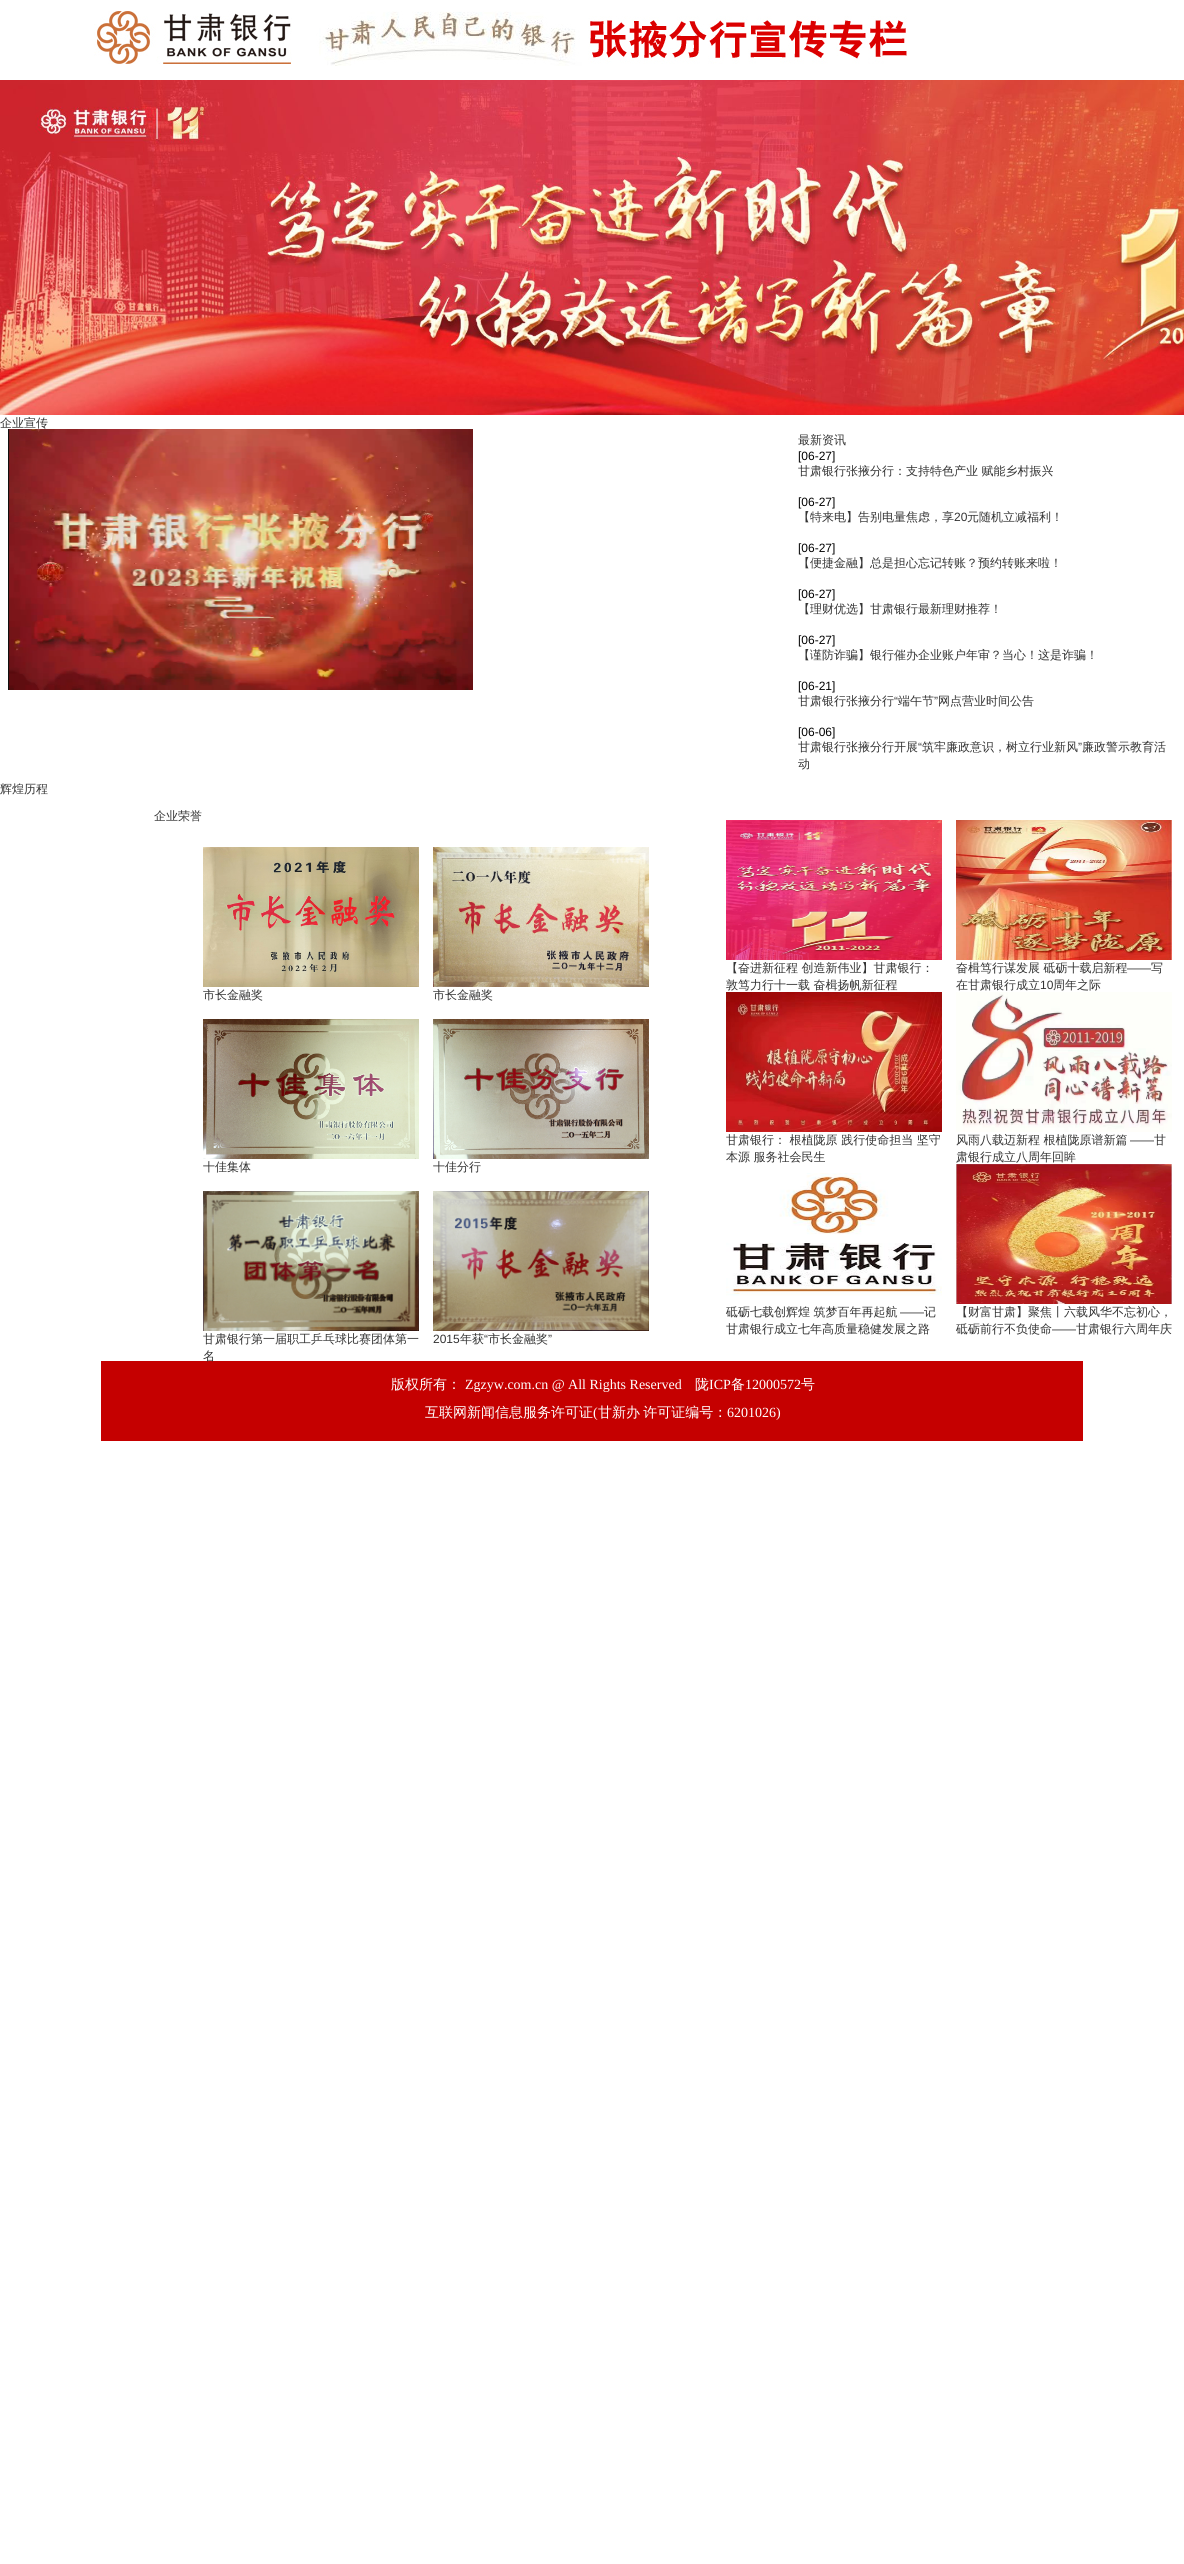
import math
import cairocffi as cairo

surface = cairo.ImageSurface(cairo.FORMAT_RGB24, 1184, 2564)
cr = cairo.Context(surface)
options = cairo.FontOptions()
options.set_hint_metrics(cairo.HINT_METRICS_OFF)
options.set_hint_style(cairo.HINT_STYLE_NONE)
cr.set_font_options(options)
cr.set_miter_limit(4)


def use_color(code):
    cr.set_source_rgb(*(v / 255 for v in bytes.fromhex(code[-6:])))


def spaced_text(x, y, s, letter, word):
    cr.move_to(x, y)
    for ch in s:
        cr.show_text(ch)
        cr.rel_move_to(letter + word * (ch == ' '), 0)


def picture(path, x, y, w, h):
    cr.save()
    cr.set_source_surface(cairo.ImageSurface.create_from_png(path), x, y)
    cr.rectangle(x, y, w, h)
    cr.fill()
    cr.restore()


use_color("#ffffff")
cr.paint()
picture("img1.png", 94, 11, 813, 55)
picture("img2.png", 0, 80, 1184, 335)
cr.select_font_face("WenQuanYi Zen Hei Medium")
cr.set_font_size(12)
use_color("#333333")
cr.move_to(0, 427)
cr.show_text("企业宣传")
picture("img3.png", 8, 429, 465, 261)
cr.move_to(798, 444)
cr.show_text("最新资讯")
cr.select_font_face("Liberation Sans")
use_color("#000000")
cr.move_to(798, 460)
cr.show_text("[06-27]")
cr.select_font_face("WenQuanYi Zen Hei Medium")
use_color("#333333")
cr.move_to(798, 475)
cr.show_text("甘肃银行张掖分行：支持特色产业 赋能乡村振兴")
cr.select_font_face("Liberation Sans")
use_color("#000000")
cr.move_to(798, 506)
cr.show_text("[06-27]")
cr.select_font_face("WenQuanYi Zen Hei Medium")
use_color("#333333")
cr.move_to(798, 521)
cr.show_text("【特来电】告别电量焦虑，享")
cr.select_font_face("Liberation Sans")
cr.move_to(954, 521)
cr.show_text("20")
cr.select_font_face("WenQuanYi Zen Hei Medium")
cr.move_to(967, 521)
cr.show_text("元随机立减福利！")
cr.select_font_face("Liberation Sans")
use_color("#000000")
cr.move_to(798, 552)
cr.show_text("[06-27]")
cr.select_font_face("WenQuanYi Zen Hei Medium")
use_color("#333333")
cr.move_to(798, 567)
cr.show_text("【便捷金融】总是担心忘记转账？预约转账来啦！")
cr.select_font_face("Liberation Sans")
use_color("#000000")
cr.move_to(798, 598)
cr.show_text("[06-27]")
cr.select_font_face("WenQuanYi Zen Hei Medium")
use_color("#333333")
cr.move_to(798, 613)
cr.show_text("【理财优选】甘肃银行最新理财推荐！")
cr.select_font_face("Liberation Sans")
use_color("#000000")
cr.move_to(798, 644)
cr.show_text("[06-27]")
cr.select_font_face("WenQuanYi Zen Hei Medium")
use_color("#333333")
cr.move_to(798, 659)
cr.show_text("【谨防诈骗】银行催办企业账户年审？当心！这是诈骗！")
cr.select_font_face("Liberation Sans")
use_color("#000000")
cr.move_to(798, 690)
cr.show_text("[06-21]")
cr.select_font_face("WenQuanYi Zen Hei Medium")
use_color("#333333")
cr.move_to(798, 705)
cr.show_text("甘肃银行张掖分行")
cr.select_font_face("Liberation Sans")
cr.move_to(894, 705)
cr.show_text("“")
cr.select_font_face("WenQuanYi Zen Hei Medium")
cr.move_to(898, 705)
cr.show_text("端午节")
cr.select_font_face("Liberation Sans")
cr.move_to(934, 705)
cr.show_text("”")
cr.select_font_face("WenQuanYi Zen Hei Medium")
cr.move_to(938, 705)
cr.show_text("网点营业时间公告")
cr.select_font_face("Liberation Sans")
use_color("#000000")
cr.move_to(798, 736)
cr.show_text("[06-06]")
cr.select_font_face("WenQuanYi Zen Hei Medium")
use_color("#333333")
cr.move_to(798, 751)
cr.show_text("甘肃银行张掖分行开展")
cr.select_font_face("Liberation Sans")
cr.move_to(918, 751)
cr.show_text("“")
cr.select_font_face("WenQuanYi Zen Hei Medium")
cr.move_to(922, 751)
cr.show_text("筑牢廉政意识，树立行业新风")
cr.select_font_face("Liberation Sans")
cr.move_to(1078, 751)
cr.show_text("”")
cr.select_font_face("WenQuanYi Zen Hei Medium")
cr.move_to(1082, 751)
cr.show_text("廉政警示教育活")
cr.move_to(798, 768)
cr.show_text("动")
cr.move_to(0, 793)
cr.show_text("辉煌历程")
picture("img4.png", 726, 820, 216, 140)
cr.move_to(726, 972)
cr.show_text("【奋进新征程 创造新伟业】甘肃银行：")
cr.move_to(726, 989)
cr.show_text("敦笃力行十一载 奋楫扬帆新征程")
picture("img5.png", 956, 820, 216, 140)
cr.move_to(956, 972)
cr.show_text("奋楫笃行谋发展 砥砺十载启新程")
cr.select_font_face("Liberation Sans")
cr.move_to(1127, 972)
cr.show_text("——")
cr.select_font_face("WenQuanYi Zen Hei Medium")
cr.move_to(1151, 972)
cr.show_text("写")
cr.move_to(956, 989)
cr.show_text("在甘肃银行成立")
cr.select_font_face("Liberation Sans")
cr.move_to(1040, 989)
cr.show_text("10")
cr.select_font_face("WenQuanYi Zen Hei Medium")
cr.move_to(1053, 989)
cr.show_text("周年之际")
picture("img6.png", 726, 992, 216, 140)
cr.move_to(726, 1144)
cr.show_text("甘肃银行： 根植陇原 践行使命担当 坚守")
cr.move_to(726, 1161)
cr.show_text("本源 服务社会民生")
picture("img7.png", 956, 992, 216, 140)
cr.move_to(956, 1144)
cr.show_text("风雨八载迈新程 根植陇原谱新篇")
cr.select_font_face("Liberation Sans")
cr.move_to(1130, 1144)
cr.show_text("——")
cr.select_font_face("WenQuanYi Zen Hei Medium")
cr.move_to(1154, 1144)
cr.show_text("甘")
cr.move_to(956, 1161)
cr.show_text("肃银行成立八周年回眸")
picture("img8.png", 726, 1173, 216, 123)
cr.move_to(726, 1316)
cr.show_text("砥砺七载创辉煌 筑梦百年再起航")
cr.select_font_face("Liberation Sans")
cr.move_to(900, 1316)
cr.show_text("——")
cr.select_font_face("WenQuanYi Zen Hei Medium")
cr.move_to(924, 1316)
cr.show_text("记")
cr.move_to(726, 1333)
cr.show_text("甘肃银行成立七年高质量稳健发展之路")
picture("img9.png", 956, 1164, 216, 140)
cr.move_to(956, 1316)
cr.show_text("【财富甘肃】聚焦丨六载风华不忘初心，")
cr.move_to(956, 1333)
cr.show_text("砥砺前行不负使命")
cr.select_font_face("Liberation Sans")
cr.move_to(1052, 1333)
cr.show_text("——")
cr.select_font_face("WenQuanYi Zen Hei Medium")
cr.move_to(1076, 1333)
cr.show_text("甘肃银行六周年庆")
cr.move_to(154, 820)
cr.show_text("企业荣誉")
picture("img10.png", 203, 847, 216, 140)
cr.move_to(203, 999)
cr.show_text("市长金融奖")
picture("img11.png", 433, 847, 216, 140)
cr.move_to(433, 999)
cr.show_text("市长金融奖")
picture("img12.png", 203, 1019, 216, 140)
cr.move_to(203, 1171)
cr.show_text("十佳集体")
picture("img13.png", 433, 1019, 216, 140)
cr.move_to(433, 1171)
cr.show_text("十佳分行")
picture("img14.png", 203, 1191, 216, 140)
cr.move_to(203, 1343)
cr.show_text("甘肃银行第一届职工乒乓球比赛团体第一")
use_color("#c50000")
cr.rectangle(101, 1361, 982, 80)
cr.fill()
use_color("#333333")
cr.move_to(203, 1360)
cr.show_text("名")
picture("img15.png", 433, 1191, 216, 140)
cr.select_font_face("Liberation Sans")
cr.move_to(433, 1343)
cr.show_text("2015")
cr.select_font_face("WenQuanYi Zen Hei Medium")
cr.move_to(460, 1343)
cr.show_text("年获")
cr.select_font_face("Liberation Sans")
cr.move_to(484, 1343)
cr.show_text("“")
cr.select_font_face("WenQuanYi Zen Hei Medium")
cr.move_to(488, 1343)
cr.show_text("市长金融奖")
cr.select_font_face("Liberation Sans")
cr.move_to(548, 1343)
cr.show_text("”")
cr.select_font_face("WenQuanYi Zen Hei Medium")
cr.set_font_size(14)
use_color("#ffffff")
cr.move_to(391, 1389)
cr.show_text("版权所有：")
cr.select_font_face("Liberation Serif")
cr.move_to(465, 1389)
cr.show_text("Zgzyw.com.cn @ All Rights Reserved")
cr.select_font_face("WenQuanYi Zen Hei Medium")
cr.move_to(695, 1389)
cr.show_text("陇")
cr.select_font_face("Liberation Serif")
cr.move_to(709, 1389)
cr.show_text("ICP")
cr.select_font_face("WenQuanYi Zen Hei Medium")
cr.move_to(731, 1389)
cr.show_text("备")
cr.select_font_face("Liberation Serif")
cr.move_to(745, 1389)
cr.show_text("12000572")
cr.select_font_face("WenQuanYi Zen Hei Medium")
cr.move_to(801, 1389)
cr.show_text("号")
cr.move_to(425, 1417)
cr.show_text("互联网新闻信息服务许可证")
cr.select_font_face("Liberation Serif")
cr.move_to(593, 1417)
cr.show_text("(")
cr.select_font_face("WenQuanYi Zen Hei Medium")
spaced_text(598, 1417, "甘新办 许可证编号：", 0, -1)
cr.select_font_face("Liberation Serif")
cr.move_to(727, 1417)
cr.show_text("6201026)")
surface.write_to_png("result.png")
